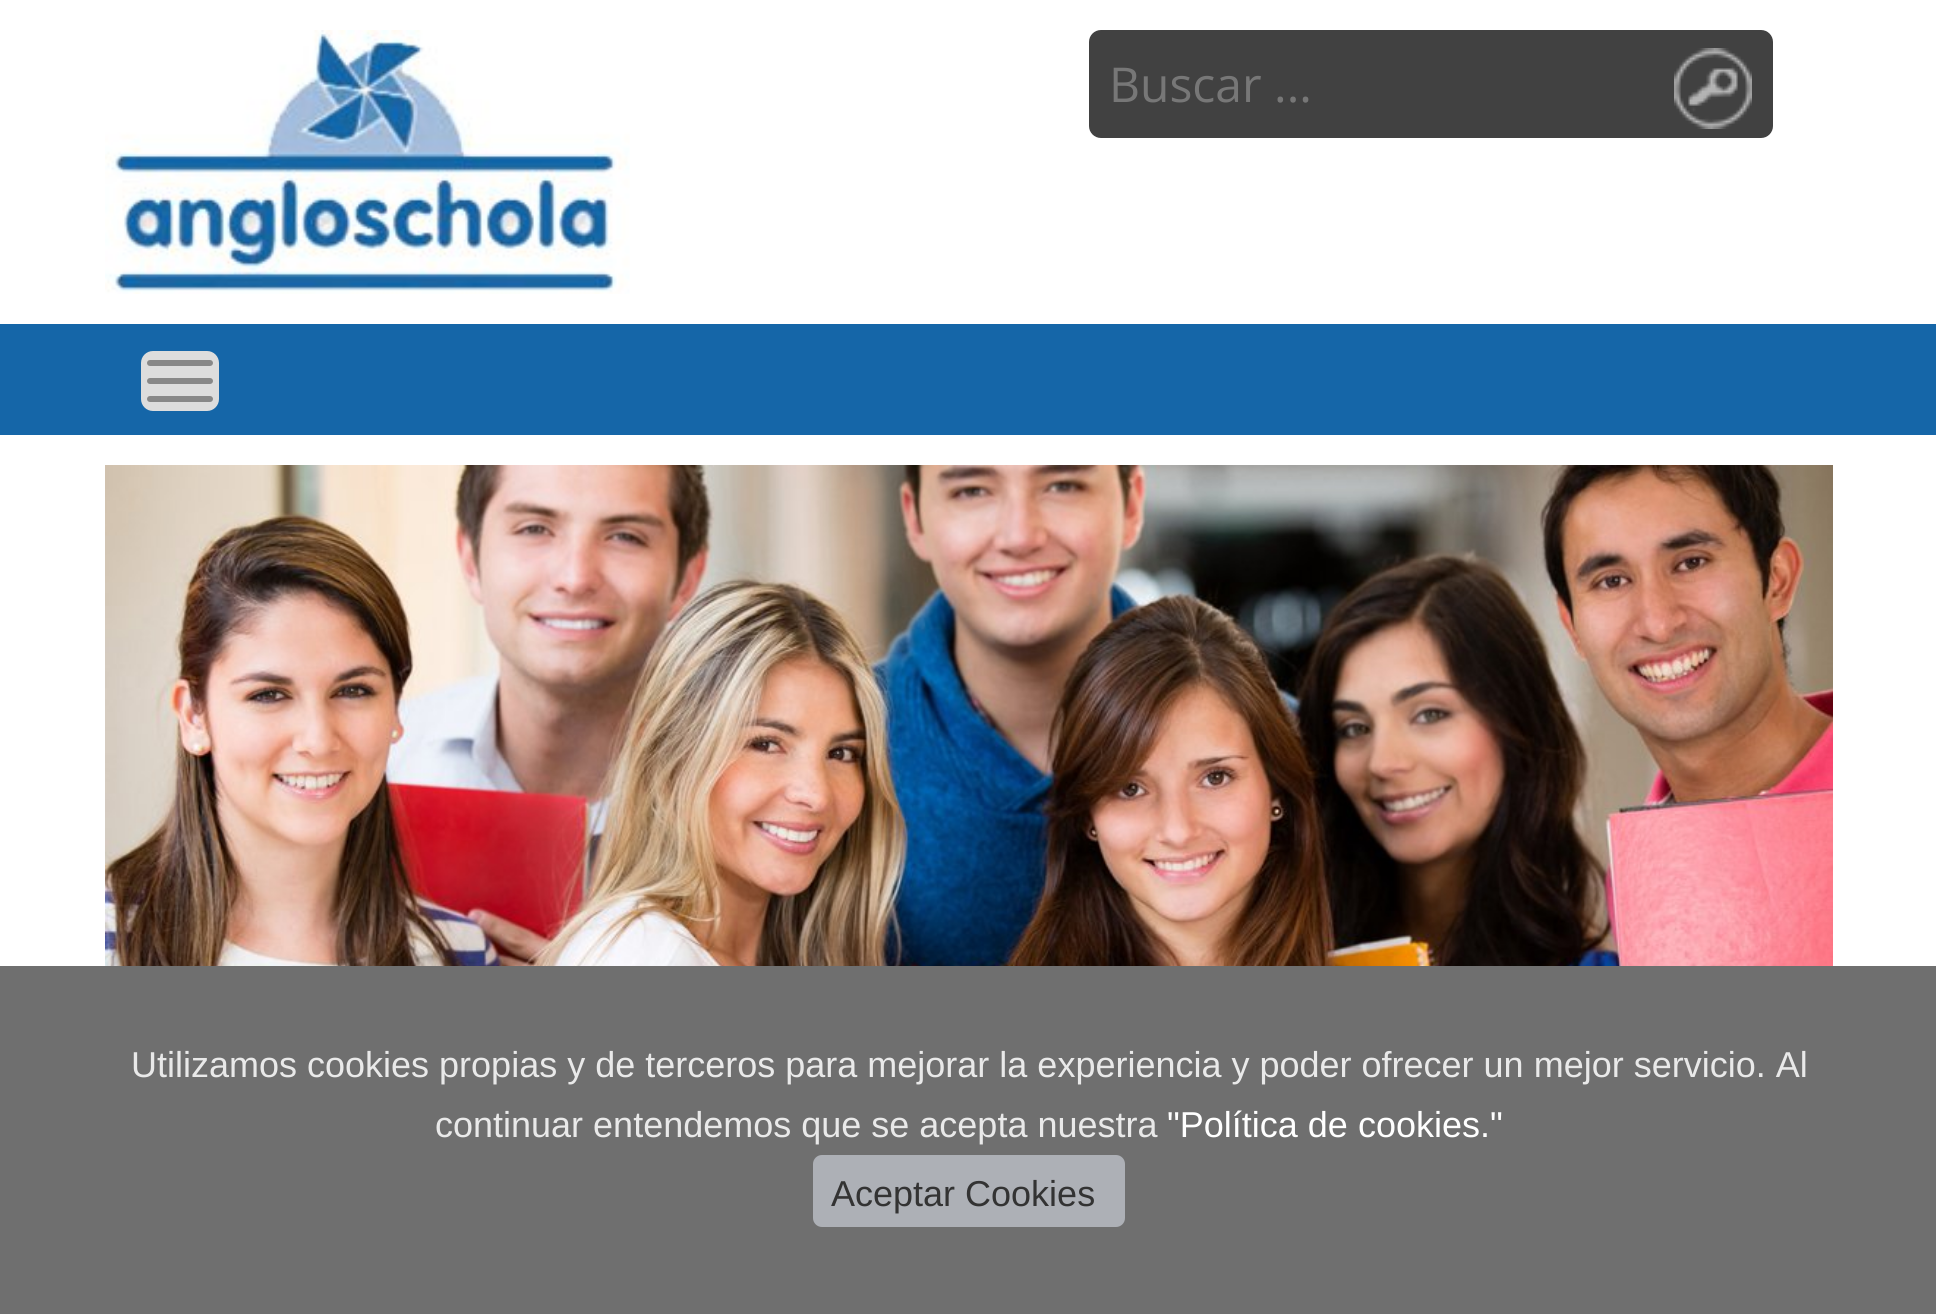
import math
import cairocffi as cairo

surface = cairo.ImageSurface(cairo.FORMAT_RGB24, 1936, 1314)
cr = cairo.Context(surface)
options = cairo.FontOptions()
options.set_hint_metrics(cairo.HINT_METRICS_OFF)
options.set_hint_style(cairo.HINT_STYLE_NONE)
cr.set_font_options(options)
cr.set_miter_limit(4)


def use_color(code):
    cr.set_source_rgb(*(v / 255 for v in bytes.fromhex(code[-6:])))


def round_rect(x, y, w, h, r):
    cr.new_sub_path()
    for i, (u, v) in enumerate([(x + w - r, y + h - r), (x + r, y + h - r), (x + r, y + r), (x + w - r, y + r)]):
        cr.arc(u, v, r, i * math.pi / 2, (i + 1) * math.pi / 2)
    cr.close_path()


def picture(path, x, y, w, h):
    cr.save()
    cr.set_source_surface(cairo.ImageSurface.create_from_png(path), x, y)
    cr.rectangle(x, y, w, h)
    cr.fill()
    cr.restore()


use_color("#ffffff")
cr.paint()
picture("img1.png", 105, 30, 525, 264)
use_color("#414141")
round_rect(1089, 30, 684, 108, 12)
cr.fill()
cr.select_font_face("Open Sans")
cr.set_font_size(48)
use_color("#777777")
cr.move_to(1109, 102)
cr.show_text("Buscar ...")
picture("img2.png", 1674, 48, 78, 81)
use_color("#1566a8")
cr.rectangle(0, 324, 1936, 111)
cr.fill()
use_color("#dddddd")
round_rect(142.5, 352.5, 75, 57, 10.5)
cr.fill_preserve()
cr.set_line_width(3)
cr.stroke()
use_color("#888888")
round_rect(147, 360, 66, 6, 3)
cr.fill()
round_rect(147, 378, 66, 6, 3)
cr.fill()
round_rect(147, 396, 66, 6, 3)
cr.fill()
picture("img3.png", 105, 465, 1728, 501)
use_color("#6f6f6f")
cr.rectangle(0, 966, 1936, 348)
cr.fill()
cr.select_font_face("Liberation Sans")
cr.set_font_size(36)
use_color("#e9e9e9")
cr.move_to(131, 1077)
cr.show_text("Utilizamos cookies propias y de terceros para mejorar la experiencia y poder ofrecer un mejor servicio. Al")
cr.move_to(435, 1137)
cr.show_text("continuar entendemos que se acepta nuestra")
use_color("#ffffff")
cr.move_to(1167, 1137)
cr.show_text("\"Política de cookies.\"")
use_color("#adb0b6")
round_rect(813, 1155, 312, 72, 9)
cr.fill()
use_color("#333333")
cr.move_to(831, 1206)
cr.show_text("Aceptar Cookies")
surface.write_to_png("result.png")
